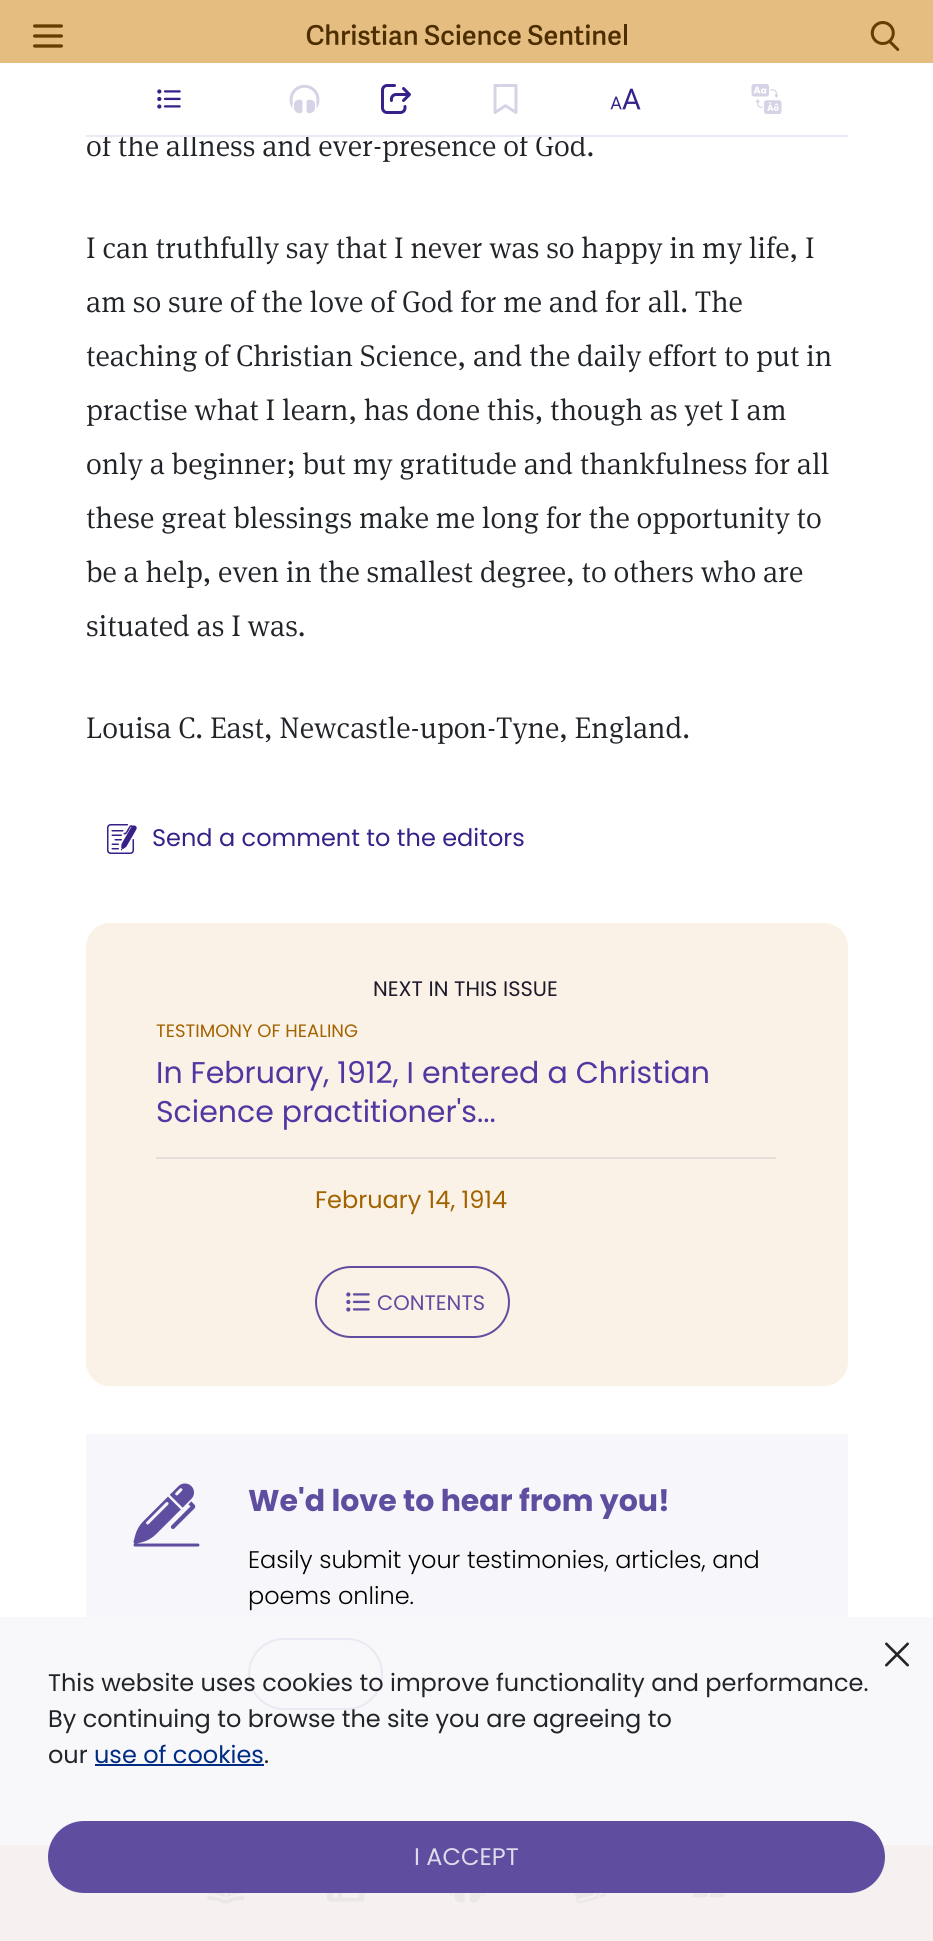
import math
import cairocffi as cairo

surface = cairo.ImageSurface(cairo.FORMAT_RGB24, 933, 1941)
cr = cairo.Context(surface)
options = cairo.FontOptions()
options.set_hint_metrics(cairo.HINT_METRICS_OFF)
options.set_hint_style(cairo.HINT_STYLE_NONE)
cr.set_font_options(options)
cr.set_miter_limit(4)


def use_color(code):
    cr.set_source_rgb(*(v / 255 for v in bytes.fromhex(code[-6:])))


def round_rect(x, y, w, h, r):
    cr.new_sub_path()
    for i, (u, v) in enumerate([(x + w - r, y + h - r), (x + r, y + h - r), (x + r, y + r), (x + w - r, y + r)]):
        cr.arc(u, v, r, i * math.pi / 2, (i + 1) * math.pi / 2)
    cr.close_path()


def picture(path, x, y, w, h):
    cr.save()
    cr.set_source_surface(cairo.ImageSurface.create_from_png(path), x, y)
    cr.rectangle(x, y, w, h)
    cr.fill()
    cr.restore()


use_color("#ffffff")
cr.paint()
use_color("#f8f7fa")
cr.rectangle(0, 1617, 933, 228)
cr.fill()
use_color("#e5bd80")
cr.rectangle(0, 0, 933, 63)
cr.fill()
picture("img1.png", 33, 24, 30, 24)
picture("img2.png", 306, 24, 321, 22)
picture("img3.png", 870, 21, 30, 30)
cr.select_font_face("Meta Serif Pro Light")
cr.set_font_size(30)
use_color("#212529")
cr.move_to(86, 156)
cr.show_text("of the allness and ever-presence of God.")
use_color("#ffffff")
cr.rectangle(106, 134, 478, 1)
cr.fill()
use_color("#ebe9f3")
cr.rectangle(86, 135, 762, 2)
cr.fill()
picture("img4.png", 157, 89, 24, 20)
picture("img5.png", 289, 84, 31, 30)
picture("img6.png", 381, 84, 30, 30)
picture("img7.png", 493, 84, 25, 30)
picture("img8.png", 610, 88, 31, 22)
picture("img9.png", 751, 84, 31, 30)
use_color("#212529")
cr.move_to(86, 258)
cr.show_text("I can truthfully say that I never was so happy in my life, I")
cr.move_to(86, 312)
cr.show_text("am so sure of the love of God for me and for all. The")
cr.move_to(86, 366)
cr.show_text("teaching of Christian Science, and the daily effort to put in")
cr.move_to(86, 420)
cr.show_text("practise what I learn, has done this, though as yet I am")
cr.move_to(86, 474)
cr.show_text("only a beginner; but my gratitude and thankfulness for all")
cr.move_to(86, 528)
cr.show_text("these great blessings make me long for the opportunity to")
cr.move_to(86, 582)
cr.show_text("be a help, even in the smallest degree, to others who are")
cr.move_to(86, 636)
cr.show_text("situated as I was.")
cr.move_to(86, 738)
cr.show_text("Louisa C. East, Newcastle-upon-Tyne, England.")
cr.select_font_face("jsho")
use_color("#372189")
cr.move_to(107, 854)
cr.show_text("1")
cr.select_font_face("Poppins")
cr.set_font_size(24)
cr.move_to(152, 846)
cr.show_text("Send a comment to the editors")
use_color("#faf2e6")
round_rect(86, 923, 762, 463, 24)
cr.fill()
use_color("#e7dddd")
cr.rectangle(156, 1157, 620, 2)
cr.fill()
cr.set_font_size(21)
use_color("#1e1a2b")
cr.move_to(373, 996)
cr.show_text("NEXT IN THIS ISSUE")
cr.set_font_size(18)
use_color("#a36200")
cr.move_to(156, 1037)
cr.show_text("TESTIMONY OF HEALING")
cr.set_font_size(30)
use_color("#4f38a1")
cr.move_to(156, 1083)
cr.show_text("In February, 1912, I entered a Christian")
cr.move_to(156, 1122)
cr.show_text("Science practitioner's...")
cr.set_font_size(24)
use_color("#a36200")
cr.move_to(315, 1208)
cr.show_text("February 14, 1914")
round_rect(316, 1267, 193, 70, 35)
use_color("#5f4da0")
cr.stroke()
picture("img10.png", 346, 1292, 24, 20)
cr.set_font_size(21)
cr.move_to(377, 1310)
cr.show_text("CONTENTS")
use_color("#f7f6fa")
cr.rectangle(86, 1434, 762, 183)
cr.fill()
picture("img11.png", 133, 1483, 67, 64)
cr.select_font_face("Poppins", cairo.FONT_SLANT_NORMAL, cairo.FONT_WEIGHT_BOLD)
cr.set_font_size(30)
use_color("#5f4da0")
cr.move_to(248, 1511)
cr.show_text("We'd love to hear from you!")
cr.select_font_face("Poppins Light")
cr.set_font_size(24)
use_color("#000000")
cr.move_to(248, 1568)
cr.show_text("Easily submit your testimonies, articles, and")
cr.move_to(248, 1604)
cr.show_text("poems online.")
round_rect(249, 1639, 133, 70, 35)
use_color("#ebe8f3")
cr.stroke()
picture("img12.png", 885, 1642, 24, 25)
cr.select_font_face("Poppins")
use_color("#212529")
cr.move_to(48, 1691)
cr.show_text("This website uses cookies to improve functionality and performance.")
cr.move_to(48, 1727)
cr.show_text("By continuing to browse the site you are agreeing to")
cr.move_to(48, 1763)
cr.show_text("our")
use_color("#002d83")
cr.move_to(94, 1763)
cr.show_text("use of cookies")
cr.rectangle(95, 1764, 169, 2)
cr.fill()
use_color("#212529")
cr.move_to(264, 1763)
cr.show_text(".")
use_color("#f6f1f0")
cr.rectangle(0, 1845, 933, 96)
cr.fill()
use_color("#5f4da0")
round_rect(49, 1822, 835, 70, 35)
cr.fill_preserve()
cr.stroke()
use_color("#dfdbec")
cr.move_to(414, 1865)
cr.show_text("I ACCEPT")
picture("img13.png", 207, 1893, 38, 11)
picture("img14.png", 327, 1893, 38, 9)
picture("img15.png", 450, 1893, 35, 10)
picture("img16.png", 574, 1893, 32, 11)
picture("img17.png", 693, 1893, 32, 5)
surface.write_to_png("result.png")
